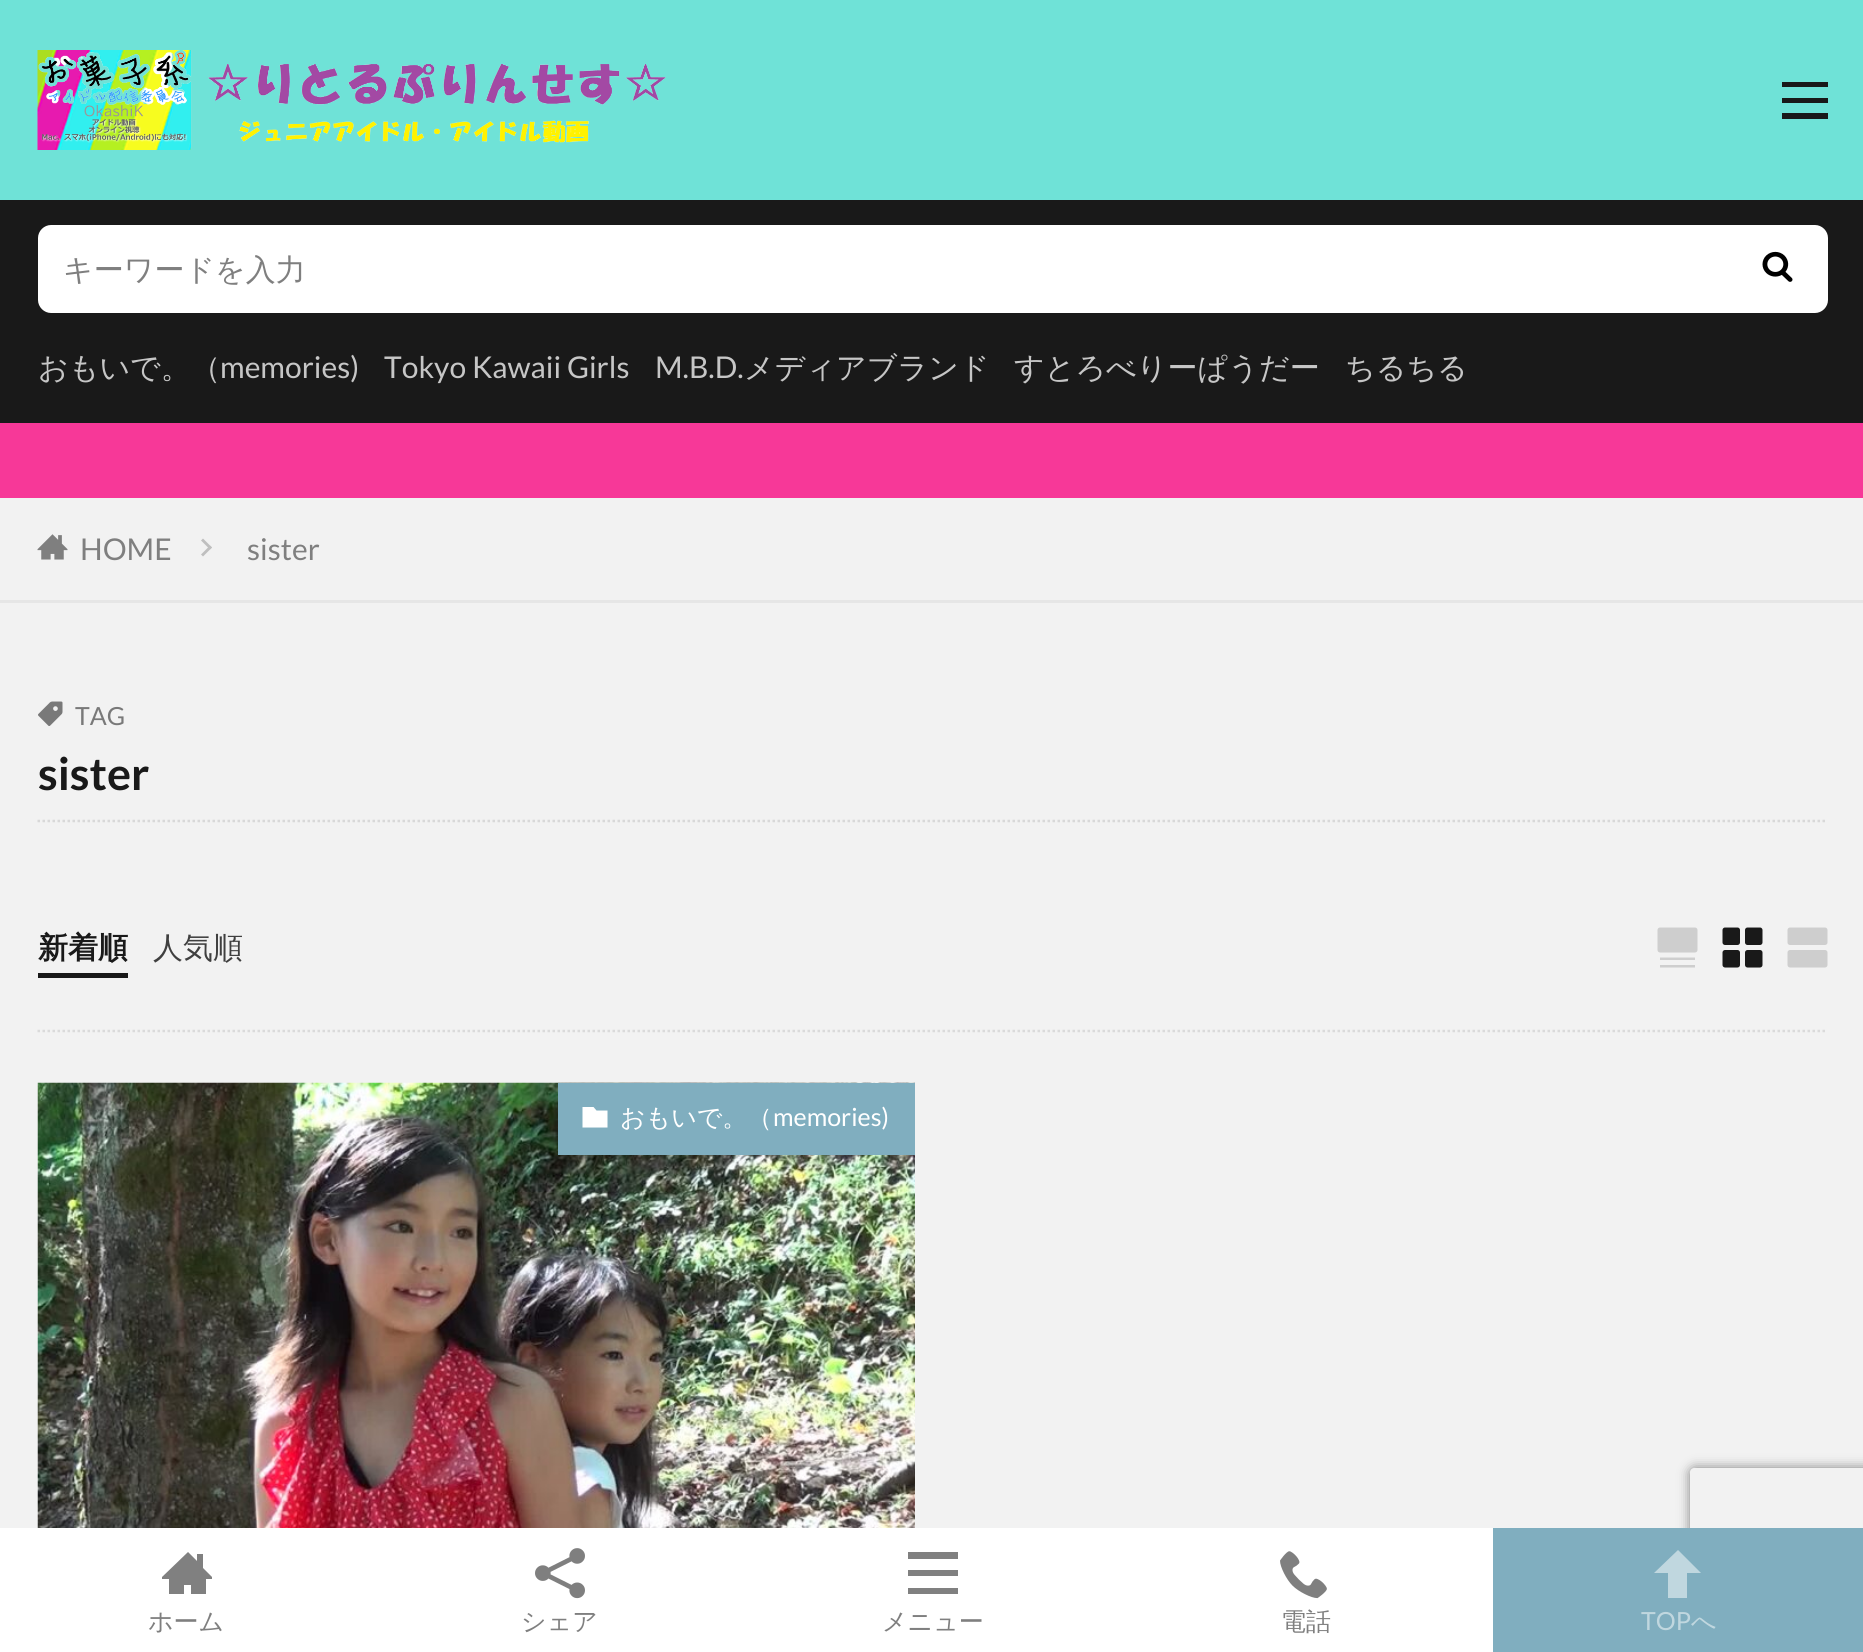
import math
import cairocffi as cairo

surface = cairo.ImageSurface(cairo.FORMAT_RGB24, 1863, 1652)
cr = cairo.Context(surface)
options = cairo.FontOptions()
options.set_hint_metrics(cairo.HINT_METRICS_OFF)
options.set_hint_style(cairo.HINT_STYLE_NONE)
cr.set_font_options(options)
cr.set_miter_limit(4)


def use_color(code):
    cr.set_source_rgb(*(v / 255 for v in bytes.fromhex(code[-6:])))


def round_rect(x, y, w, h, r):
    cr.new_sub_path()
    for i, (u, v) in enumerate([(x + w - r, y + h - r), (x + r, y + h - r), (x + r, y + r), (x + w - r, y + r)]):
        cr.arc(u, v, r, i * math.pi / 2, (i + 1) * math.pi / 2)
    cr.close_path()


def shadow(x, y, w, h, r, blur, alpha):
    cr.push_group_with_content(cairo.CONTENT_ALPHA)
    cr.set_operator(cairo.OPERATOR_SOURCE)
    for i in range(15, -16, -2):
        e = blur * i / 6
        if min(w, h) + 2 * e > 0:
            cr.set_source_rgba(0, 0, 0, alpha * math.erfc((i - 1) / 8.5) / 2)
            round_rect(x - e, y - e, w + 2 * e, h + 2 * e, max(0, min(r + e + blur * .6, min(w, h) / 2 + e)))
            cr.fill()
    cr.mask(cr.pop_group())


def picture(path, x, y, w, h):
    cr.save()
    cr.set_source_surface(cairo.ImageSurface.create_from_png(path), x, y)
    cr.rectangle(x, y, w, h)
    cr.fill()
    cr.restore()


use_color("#f2f2f2")
cr.paint()
use_color("#6fe2d7")
cr.rectangle(0, 0, 1863, 200)
cr.fill()
picture("img1.png", 37, 50, 629, 100)
use_color("#191919")
cr.new_path()
cr.move_to(1782, 82)
cr.line_to(1828, 82)
cr.line_to(1828, 87)
cr.line_to(1782, 87)
cr.close_path()
cr.move_to(1782, 98)
cr.line_to(1828, 98)
cr.line_to(1828, 103)
cr.line_to(1782, 103)
cr.close_path()
cr.move_to(1782, 113)
cr.line_to(1828, 113)
cr.line_to(1828, 119)
cr.line_to(1782, 119)
cr.close_path()
cr.fill()
cr.rectangle(0, 200, 1863, 223)
cr.fill()
use_color("#ffffff")
cr.new_path()
cr.move_to(51, 225)
cr.line_to(1728, 225)
cr.line_to(1728, 313)
cr.line_to(51, 313)
cr.curve_to(44, 313, 38, 307, 38, 300)
cr.line_to(38, 238)
cr.curve_to(38, 231, 44, 225, 51, 225)
cr.close_path()
cr.fill()
cr.select_font_face("WenQuanYi Zen Hei Medium")
cr.set_font_size(30)
use_color("#7f7f7f")
cr.move_to(63, 280)
cr.show_text("キーワードを入力")
use_color("#ffffff")
cr.new_path()
cr.move_to(1728, 225)
cr.line_to(1815, 225)
cr.curve_to(1822, 225, 1828, 231, 1828, 238)
cr.line_to(1828, 300)
cr.curve_to(1828, 307, 1822, 313, 1815, 313)
cr.line_to(1728, 313)
cr.close_path()
cr.fill()
picture("img2.png", 1762, 251, 31, 31)
use_color("#c6c6c6")
cr.move_to(38, 378)
cr.show_text("おもいで。（")
cr.select_font_face("Lato")
cr.move_to(220, 378)
cr.show_text("memories)")
cr.move_to(384, 378)
cr.show_text("Tokyo Kawaii Girls")
cr.move_to(655, 378)
cr.show_text("M.B.D.")
cr.select_font_face("WenQuanYi Zen Hei Medium")
cr.move_to(744, 378)
cr.show_text("メディアブランド")
cr.move_to(1014, 378)
cr.show_text("すとろべりーぱうだー")
cr.move_to(1345, 378)
cr.show_text("ちるちる")
use_color("#f73898")
cr.rectangle(0, 423, 1863, 75)
cr.fill()
use_color("#e6e6e6")
cr.rectangle(0, 600, 1863, 3)
cr.fill()
picture("img3.png", 37, 534, 31, 26)
cr.select_font_face("Lato")
use_color("#7f7f7f")
cr.move_to(80, 560)
cr.show_text("HOME")
use_color("#bfbfbf")
cr.new_path()
cr.move_to(203, 538.5)
cr.line_to(212, 547.5)
cr.line_to(210, 549.5)
cr.line_to(201, 540.5)
cr.close_path()
cr.fill()
cr.new_path()
cr.move_to(210, 545.5)
cr.line_to(212, 547.5)
cr.line_to(203, 556.5)
cr.line_to(201, 554.5)
cr.close_path()
cr.fill()
use_color("#7f7f7f")
cr.move_to(247, 560)
cr.show_text("sister")
picture("img4.png", 38, 701, 25, 25)
cr.set_font_size(25)
use_color("#797979")
cr.move_to(75, 725)
cr.show_text("TAG")
cr.new_path()
cr.move_to(37.5, 821)
cr.line_to(1827.5, 821)
use_color("#d8d8d8")
cr.set_line_width(2.5)
cr.set_dash([2.5, 2.5])
cr.stroke()
cr.select_font_face("Lato", cairo.FONT_SLANT_NORMAL, cairo.FONT_WEIGHT_BOLD)
cr.set_font_size(45)
use_color("#191919")
cr.move_to(38, 790)
cr.show_text("sister")
cr.new_path()
cr.move_to(37.5, 1031)
cr.line_to(1827.5, 1031)
use_color("#dadada")
cr.stroke()
cr.select_font_face("WenQuanYi Zen Hei", cairo.FONT_SLANT_NORMAL, cairo.FONT_WEIGHT_BOLD)
cr.set_font_size(30)
use_color("#191919")
cr.move_to(38, 958)
cr.show_text("新着順")
cr.rectangle(38, 973, 90, 5)
cr.fill()
cr.select_font_face("WenQuanYi Zen Hei Medium")
use_color("#3f3f3f")
cr.move_to(153, 958)
cr.show_text("人気順")
picture("img5.png", 1657, 927, 41, 41)
picture("img6.png", 1722, 927, 41, 41)
picture("img7.png", 1787, 927, 41, 41)
picture("img8.png", 37, 1082, 878, 446)
use_color("#80aebf")
cr.rectangle(558, 1083, 357, 72)
cr.fill()
use_color("#ffffff")
cr.new_path()
cr.move_to(593.5, 1107)
cr.line_to(596.5, 1110.5)
cr.line_to(607.5, 1110.5)
cr.line_to(607.5, 1127.5)
cr.line_to(582.5, 1127.5)
cr.line_to(582.5, 1107)
cr.close_path()
cr.fill()
cr.set_font_size(25)
cr.move_to(620, 1126)
cr.show_text("おもいで。（")
cr.select_font_face("Lato")
cr.move_to(773, 1126)
cr.show_text("memories)")
cr.rectangle(0, 1528, 1493, 124)
cr.fill()
use_color("#808080")
cr.new_path()
cr.move_to(212, 1577)
cr.line_to(203, 1568)
cr.line_to(203, 1554)
cr.line_to(197, 1554)
cr.line_to(197, 1561)
cr.line_to(188, 1552)
cr.line_to(162, 1577)
cr.line_to(162, 1579)
cr.line_to(169, 1579)
cr.line_to(169, 1594)
cr.line_to(184, 1594)
cr.line_to(184, 1585)
cr.line_to(191, 1585)
cr.line_to(191, 1594)
cr.line_to(206, 1594)
cr.line_to(206, 1579)
cr.line_to(212, 1579)
cr.close_path()
cr.fill()
cr.select_font_face("WenQuanYi Zen Hei Medium")
use_color("#7f7f7f")
cr.move_to(148, 1630)
cr.show_text("ホーム")
picture("img9.png", 535, 1548, 50, 51)
cr.move_to(521, 1630)
cr.show_text("シェア")
use_color("#808080")
cr.new_path()
cr.move_to(908, 1552)
cr.line_to(958, 1552)
cr.line_to(958, 1559)
cr.line_to(908, 1559)
cr.close_path()
cr.move_to(908, 1570)
cr.line_to(958, 1570)
cr.line_to(958, 1576)
cr.line_to(908, 1576)
cr.close_path()
cr.move_to(908, 1588)
cr.line_to(958, 1588)
cr.line_to(958, 1594)
cr.line_to(908, 1594)
cr.close_path()
cr.fill()
use_color("#7f7f7f")
cr.move_to(882, 1630)
cr.show_text("メニュー")
picture("img10.png", 1280, 1551, 47, 48)
cr.move_to(1281, 1630)
cr.show_text("電話")
cr.save()
cr.set_fill_rule(cairo.FILL_RULE_EVEN_ODD)
cr.new_path()
cr.move_to(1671, 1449)
cr.line_to(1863, 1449)
cr.line_to(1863, 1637)
cr.line_to(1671, 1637)
cr.close_path()
cr.move_to(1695, 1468)
cr.line_to(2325, 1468)
cr.curve_to(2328, 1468, 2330, 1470, 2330, 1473)
cr.line_to(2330, 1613)
cr.curve_to(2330, 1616, 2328, 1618, 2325, 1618)
cr.line_to(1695, 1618)
cr.curve_to(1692, 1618, 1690, 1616, 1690, 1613)
cr.line_to(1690, 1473)
cr.curve_to(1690, 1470, 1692, 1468, 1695, 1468)
cr.close_path()
cr.clip()
use_color("#808080")
shadow(1690, 1468, 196, 150, 5, 6, 1)
cr.restore()
use_color("#80aebf")
cr.rectangle(1493, 1528, 370, 124)
cr.fill()
use_color("#c0d7df")
cr.new_path()
cr.move_to(1678, 1550)
cr.line_to(1654, 1573)
cr.line_to(1668, 1573)
cr.line_to(1668, 1598)
cr.line_to(1687, 1598)
cr.line_to(1687, 1573)
cr.line_to(1701, 1573)
cr.close_path()
cr.fill()
cr.select_font_face("Lato")
cr.move_to(1641, 1630)
cr.show_text("TOP")
cr.select_font_face("WenQuanYi Zen Hei Medium")
cr.move_to(1691, 1630)
cr.show_text("へ")
surface.write_to_png("result.png")
